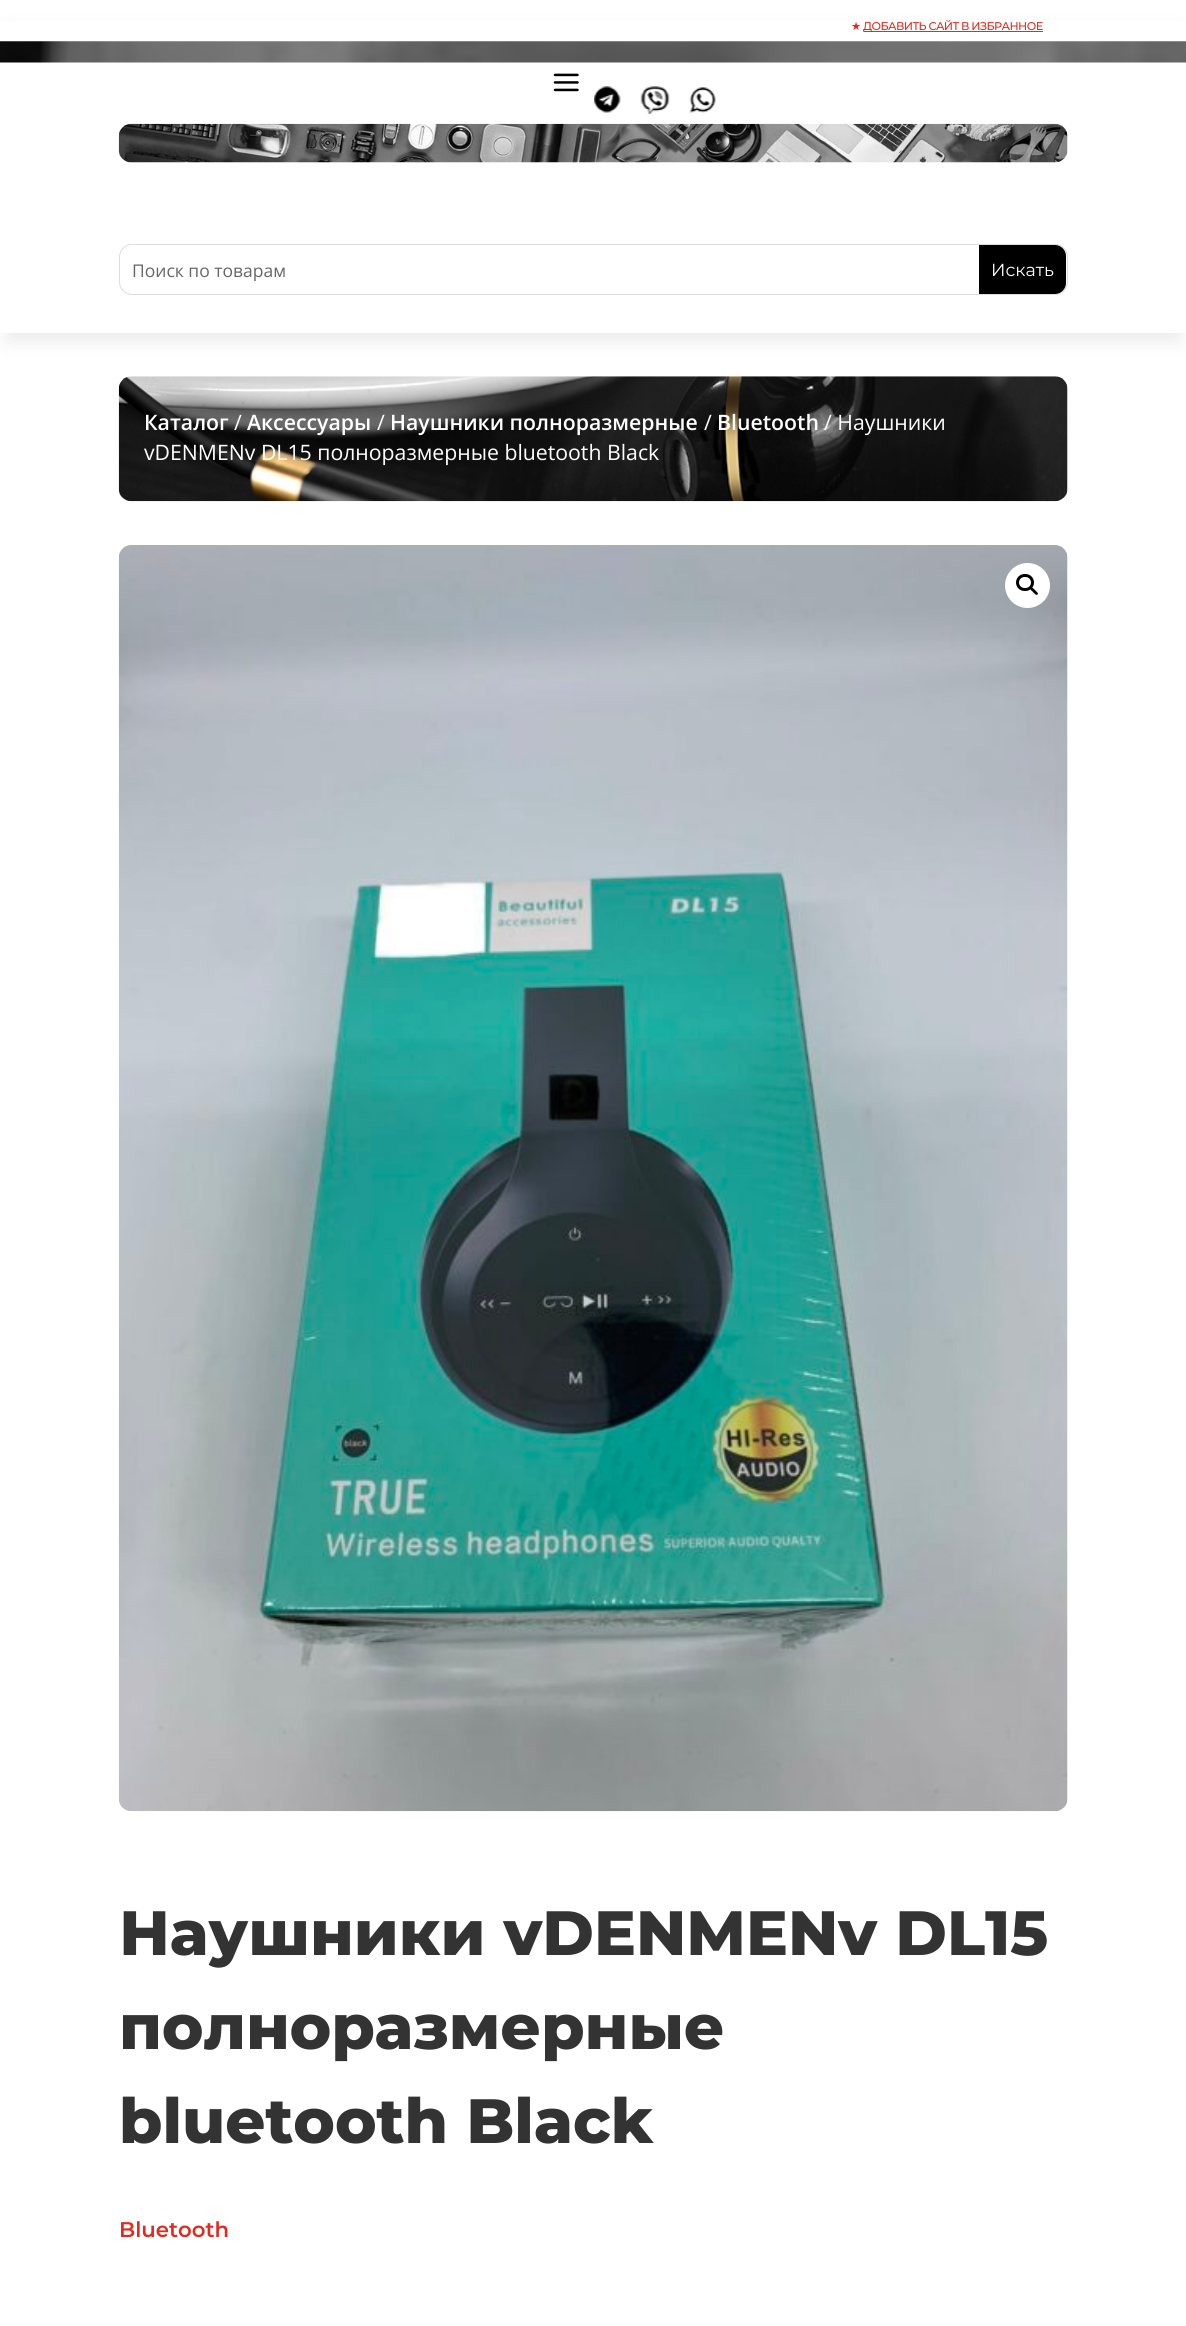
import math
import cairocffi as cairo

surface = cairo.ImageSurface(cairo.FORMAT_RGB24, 1186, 2326)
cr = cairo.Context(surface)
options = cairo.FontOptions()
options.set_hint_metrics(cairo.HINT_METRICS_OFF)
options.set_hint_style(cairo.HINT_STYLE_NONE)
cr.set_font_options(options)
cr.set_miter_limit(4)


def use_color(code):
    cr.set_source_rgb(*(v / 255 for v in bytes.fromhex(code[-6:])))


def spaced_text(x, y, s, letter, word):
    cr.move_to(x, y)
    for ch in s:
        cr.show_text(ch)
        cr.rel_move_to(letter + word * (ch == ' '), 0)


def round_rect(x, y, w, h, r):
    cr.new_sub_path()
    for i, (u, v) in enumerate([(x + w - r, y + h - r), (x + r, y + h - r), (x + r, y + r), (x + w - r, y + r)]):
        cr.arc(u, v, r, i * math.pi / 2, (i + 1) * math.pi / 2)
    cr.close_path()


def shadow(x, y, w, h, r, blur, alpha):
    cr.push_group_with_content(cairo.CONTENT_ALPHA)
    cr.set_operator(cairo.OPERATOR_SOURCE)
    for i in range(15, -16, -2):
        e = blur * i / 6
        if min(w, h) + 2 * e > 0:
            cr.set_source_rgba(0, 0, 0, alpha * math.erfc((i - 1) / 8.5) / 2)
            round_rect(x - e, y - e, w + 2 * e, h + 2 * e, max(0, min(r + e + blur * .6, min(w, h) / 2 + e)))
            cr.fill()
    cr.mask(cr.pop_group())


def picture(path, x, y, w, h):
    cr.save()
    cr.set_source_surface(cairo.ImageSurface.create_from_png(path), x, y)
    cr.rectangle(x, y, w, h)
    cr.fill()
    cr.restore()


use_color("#ffffff")
cr.paint()
use_color("#000000")
shadow(8, 34, 1171, 306, 0, 11, 0.09)
use_color("#ffffff")
cr.rectangle(0, 21, 1186, 312)
cr.fill()
cr.select_font_face("DejaVu Sans")
cr.set_font_size(11.25)
use_color("#e02b20")
spaced_text(851, 30, "★", -0.6, 0)
cr.rectangle(864, 31, 179, 1)
cr.fill()
cr.select_font_face("Montserrat Medium")
spaced_text(863, 30, "ДОБАВИТЬ САЙТ В ИЗБРАННОЕ", -0.6, 0)
picture("img1.png", 0, 41, 1186, 22)
picture("img3.png", 593, 86, 28, 27)
use_color("#ffffff")
cr.rectangle(593, 95, 1, 8)
cr.fill()
picture("img2.png", 553, 73, 26, 19)
picture("img4.png", 640, 86, 30, 28)
picture("img5.png", 689, 87, 27, 26)
picture("img6.png", 118, 123, 950, 40)
round_rect(119.5, 244.5, 948, 50, 12.5)
use_color("#dddddd")
cr.set_line_width(1)
cr.stroke()
cr.select_font_face("Open Sans")
cr.set_font_size(17.5)
use_color("#666666")
cr.move_to(132, 277)
cr.show_text("Поиск по товарам")
use_color("#000000")
cr.new_path()
cr.move_to(979, 245)
cr.line_to(1055, 245)
cr.curve_to(1061, 245, 1066, 250, 1066, 256)
cr.line_to(1066, 283)
cr.curve_to(1066, 289, 1061, 294, 1055, 294)
cr.line_to(979, 294)
cr.close_path()
cr.fill()
cr.select_font_face("Montserrat")
use_color("#ffffff")
cr.move_to(991, 276)
cr.show_text("Искать")
picture("img7.png", 118, 376, 950, 126)
cr.select_font_face("Open Sans SemiBold")
cr.set_font_size(21.25)
cr.move_to(144, 430)
cr.show_text("Каталог")
cr.select_font_face("Open Sans")
cr.move_to(234, 430)
cr.show_text("/")
cr.select_font_face("Open Sans SemiBold")
cr.move_to(247, 430)
cr.show_text("Аксессуары")
cr.select_font_face("Open Sans")
cr.move_to(377, 430)
cr.show_text("/")
cr.select_font_face("Open Sans SemiBold")
cr.move_to(390, 430)
cr.show_text("Наушники полноразмерные")
cr.select_font_face("Open Sans")
cr.move_to(704, 430)
cr.show_text("/")
cr.select_font_face("Open Sans SemiBold")
cr.move_to(717, 430)
cr.show_text("Bluetooth")
cr.select_font_face("Open Sans")
cr.move_to(824, 430)
cr.show_text("/ Наушники")
cr.move_to(144, 460)
cr.show_text("vDENMENv DL15 полноразмерные bluetooth Black")
picture("img8.png", 118, 545, 950, 1267)
cr.arc(1027.5, 585.5, 22.5, 0, 2 * math.pi)
cr.fill()
round_rect(1017.5, 575.5, 15, 14, 7)
use_color("#000000")
cr.set_line_width(3)
cr.stroke()
cr.new_path()
cr.move_to(1030.5, 587.5)
cr.curve_to(1032, 586, 1034, 589.5, 1035, 590)
cr.curve_to(1035.5, 591, 1039, 593, 1037.5, 594.5)
cr.curve_to(1036, 596, 1033.5, 592.5, 1033, 592)
cr.curve_to(1032, 591, 1029, 589, 1030.5, 587.5)
cr.close_path()
cr.fill()
cr.select_font_face("Montserrat ExtraBold")
cr.set_font_size(62.5)
use_color("#333333")
cr.move_to(119, 1955)
cr.show_text("Наушники vDENMENv DL15")
cr.move_to(119, 2049)
cr.show_text("полноразмерные")
cr.move_to(119, 2143)
cr.show_text("bluetooth Black")
cr.select_font_face("Montserrat SemiBold")
cr.set_font_size(21.25)
use_color("#e02b20")
cr.move_to(119, 2237)
cr.show_text("Bluetooth")
surface.write_to_png("result.png")
